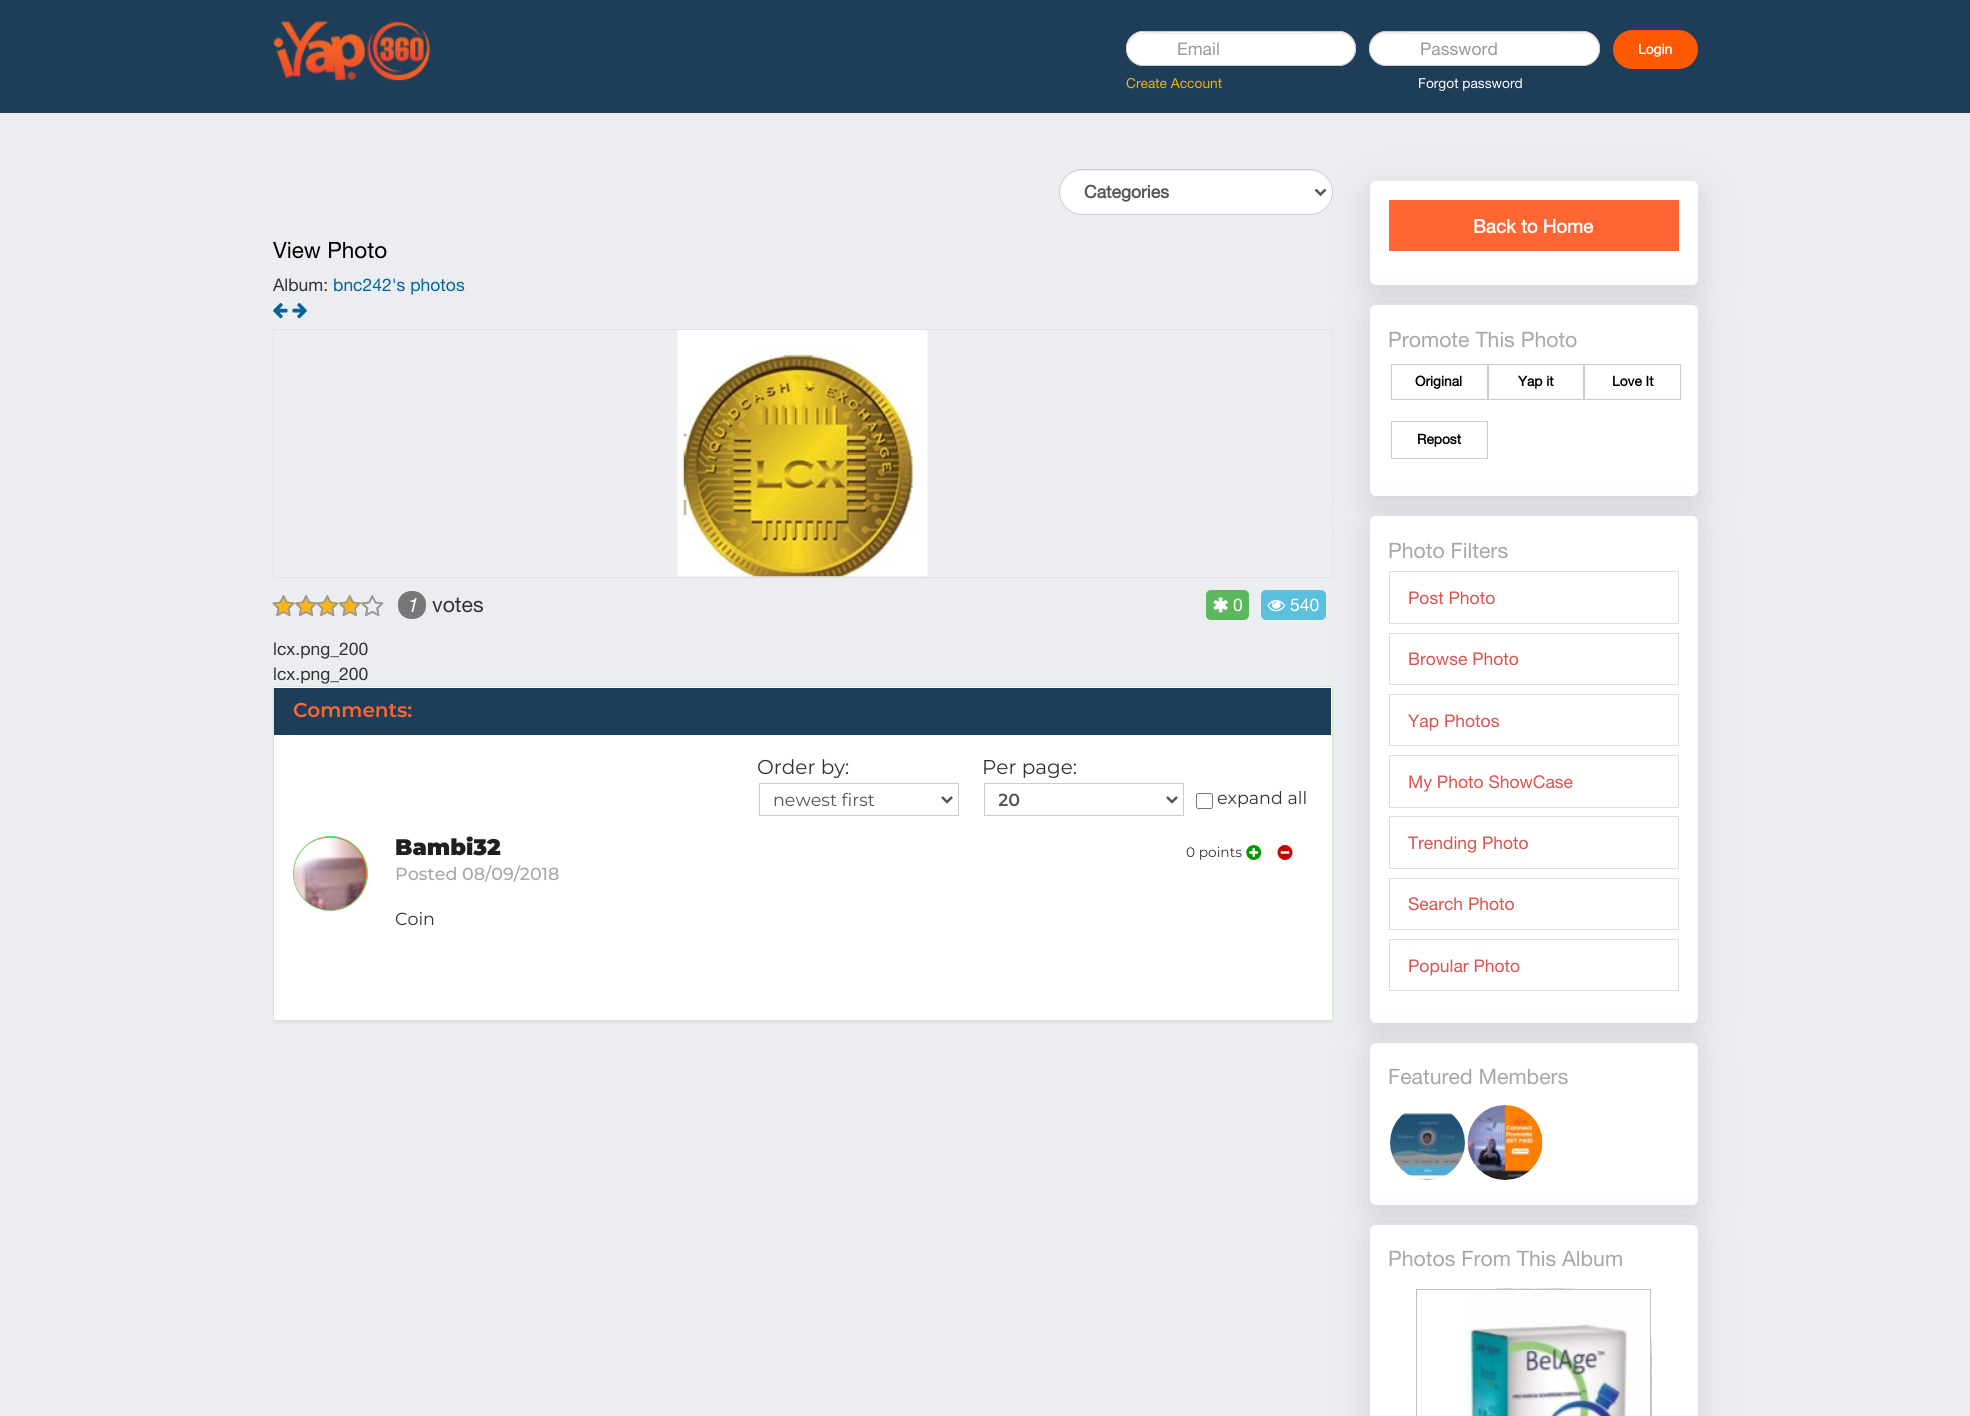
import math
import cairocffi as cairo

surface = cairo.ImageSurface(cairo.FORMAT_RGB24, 1970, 1416)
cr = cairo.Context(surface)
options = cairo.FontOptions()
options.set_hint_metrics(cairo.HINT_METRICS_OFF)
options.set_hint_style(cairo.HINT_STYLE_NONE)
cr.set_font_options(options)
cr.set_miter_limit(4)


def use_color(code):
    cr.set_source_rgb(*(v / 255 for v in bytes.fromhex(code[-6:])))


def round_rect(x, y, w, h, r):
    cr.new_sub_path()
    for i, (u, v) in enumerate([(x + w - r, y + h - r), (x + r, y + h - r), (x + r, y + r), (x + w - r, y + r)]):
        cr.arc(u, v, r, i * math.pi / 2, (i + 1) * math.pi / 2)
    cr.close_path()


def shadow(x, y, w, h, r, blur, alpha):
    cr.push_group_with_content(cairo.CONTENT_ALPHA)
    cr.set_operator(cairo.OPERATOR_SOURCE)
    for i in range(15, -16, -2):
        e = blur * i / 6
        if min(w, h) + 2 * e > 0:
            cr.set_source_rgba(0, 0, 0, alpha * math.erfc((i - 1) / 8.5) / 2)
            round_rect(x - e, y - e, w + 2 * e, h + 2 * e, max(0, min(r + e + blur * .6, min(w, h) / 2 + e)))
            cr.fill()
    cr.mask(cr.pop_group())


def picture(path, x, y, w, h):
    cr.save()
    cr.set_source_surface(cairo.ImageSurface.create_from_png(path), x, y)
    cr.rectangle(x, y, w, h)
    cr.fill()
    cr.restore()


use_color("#ebedf1")
cr.paint()
use_color("#1e3d59")
cr.rectangle(0, 0, 1970, 113)
cr.fill()
picture("img1.png", 273, 21, 158, 60)
use_color("#ffffff")
round_rect(1126, 31, 230, 35, 17.5)
cr.fill()
use_color("#ececec")
cr.new_path()
cr.move_to(1144, 34)
cr.line_to(1339, 34)
cr.curve_to(1348, 34, 1355, 41, 1355, 49)
cr.curve_to(1356, 25, 1317, 33, 1306, 33)
cr.line_to(1176, 33)
cr.curve_to(1166, 33, 1127, 25, 1128, 49)
cr.curve_to(1128, 41, 1135, 34, 1144, 34)
cr.close_path()
cr.fill()
round_rect(1126.5, 31.5, 229, 34, 17)
use_color("#cccccc")
cr.set_line_width(1)
cr.stroke()
cr.select_font_face("Helvetica Neue")
cr.set_font_size(17.5)
use_color("#999999")
cr.move_to(1177, 55)
cr.show_text("Email")
use_color("#ffffff")
round_rect(1369, 31, 231, 35, 17.5)
cr.fill()
use_color("#ececec")
cr.new_path()
cr.move_to(1386, 34)
cr.line_to(1582, 34)
cr.curve_to(1591, 34, 1599, 41, 1599, 50)
cr.curve_to(1600, 25, 1561, 33, 1550, 33)
cr.line_to(1419, 33)
cr.curve_to(1408, 33, 1369, 25, 1370, 49)
cr.curve_to(1370, 41, 1377, 34, 1386, 34)
cr.close_path()
cr.fill()
round_rect(1369.5, 31.5, 230, 34, 17)
use_color("#cccccc")
cr.stroke()
use_color("#999999")
cr.move_to(1420, 55)
cr.show_text("Password")
use_color("#fd5904")
round_rect(1613, 30, 85, 39, 19.5)
cr.fill()
cr.select_font_face("Helvetica Neue", cairo.FONT_SLANT_NORMAL, cairo.FONT_WEIGHT_BOLD)
cr.set_font_size(13.75)
use_color("#ffffff")
cr.move_to(1638, 54)
cr.show_text("Login")
cr.select_font_face("Helvetica Neue")
use_color("#f2b201")
cr.move_to(1126, 88)
cr.show_text("Create Account")
use_color("#ffffff")
cr.move_to(1418, 88)
cr.show_text("Forgot password")
use_color("#64646f")
shadow(1370, 190, 328, 104, 6, 18, 0.2)
use_color("#ffffff")
round_rect(1059, 169, 274, 46, 23)
cr.fill()
use_color("#ececec")
cr.new_path()
cr.move_to(1082, 171)
cr.line_to(1309, 171)
cr.curve_to(1321, 171, 1331, 181, 1331, 193)
cr.line_to(1331, 192)
cr.curve_to(1331, 180, 1321, 170, 1309, 170)
cr.line_to(1082, 170)
cr.curve_to(1070, 170, 1060, 180, 1060, 192)
cr.line_to(1060, 193)
cr.curve_to(1060, 181, 1070, 171, 1082, 171)
cr.close_path()
cr.fill()
round_rect(1059.5, 169.5, 273, 45, 22.5)
use_color("#cccccc")
cr.stroke()
cr.new_path()
cr.move_to(1315.5, 189.5)
cr.line_to(1320.5, 194.5)
cr.line_to(1325.5, 189.5)
use_color("#555555")
cr.set_line_width(2.5)
cr.stroke()
cr.select_font_face("Helvetica Neue", cairo.FONT_SLANT_NORMAL, cairo.FONT_WEIGHT_BOLD)
cr.set_font_size(17.5)
cr.move_to(1084, 198)
cr.show_text("Categories")
cr.select_font_face("Helvetica Neue")
cr.set_font_size(22.5)
use_color("#000000")
cr.move_to(273, 258)
cr.show_text("View Photo")
cr.set_font_size(17.5)
use_color("#333333")
cr.move_to(273, 291)
cr.show_text("Album:")
use_color("#006699")
cr.move_to(333, 291)
cr.show_text("bnc242's photos")
picture("img2.png", 273, 303, 15, 16)
picture("img3.png", 292, 303, 15, 16)
use_color("#ffffff")
round_rect(1370, 181, 328, 104, 6)
cr.fill()
use_color("#64646f")
shadow(1370, 314, 328, 191, 6, 18, 0.2)
use_color("#ffffff")
round_rect(1370, 305, 328, 191, 6)
cr.fill()
use_color("#64646f")
shadow(1370, 525, 328, 506, 6, 18, 0.2)
cr.rectangle(273.5, 329.5, 1059, 248)
use_color("#e4e1e1")
cr.set_line_width(1)
cr.stroke()
picture("img4.png", 677, 330, 251, 247)
picture("img5.png", 272, 595, 23, 21)
picture("img6.png", 295, 595, 22, 21)
picture("img7.png", 316, 595, 23, 21)
picture("img8.png", 338, 595, 23, 21)
picture("img9.png", 361, 595, 23, 21)
picture("img15.png", 273, 595, 22, 21)
picture("img10.png", 272, 595, 23, 21)
picture("img16.png", 295, 595, 22, 22)
picture("img17.png", 316, 595, 23, 22)
picture("img11.png", 295, 595, 22, 21)
picture("img18.png", 338, 595, 23, 22)
picture("img12.png", 316, 595, 23, 21)
picture("img13.png", 338, 595, 23, 21)
picture("img19.png", 361, 602, 2, 4)
picture("img14.png", 361, 595, 23, 21)
use_color("#777777")
round_rect(398, 591, 28, 28, 13)
cr.fill()
cr.select_font_face("Helvetica Neue", cairo.FONT_SLANT_ITALIC)
cr.set_font_size(20)
use_color("#ffffff")
cr.move_to(406, 612)
cr.show_text("1")
cr.select_font_face("Helvetica Neue")
cr.set_font_size(21.25)
use_color("#333333")
cr.move_to(432, 612)
cr.show_text("votes")
use_color("#5cb85c")
round_rect(1206, 590, 43, 30, 5)
cr.fill()
picture("img20.png", 1213, 597, 15, 16)
cr.set_font_size(17.5)
use_color("#ffffff")
cr.move_to(1233, 611)
cr.show_text("0")
use_color("#5bc0de")
round_rect(1261, 590, 65, 30, 5)
cr.fill()
picture("img21.png", 1267, 600, 18, 12)
use_color("#ffffff")
cr.move_to(1290, 611)
cr.show_text("540")
use_color("#333333")
cr.move_to(273, 655)
cr.show_text("lcx.png_200")
cr.move_to(273, 680)
cr.show_text("lcx.png_200")
use_color("#000000")
shadow(273, 688, 1060, 335, 0, 0.5, 0.05)
use_color("#ffffff")
round_rect(1370, 516, 328, 507, 6)
cr.fill()
use_color("#64646f")
shadow(1370, 1051, 328, 163, 6, 18, 0.2)
use_color("#ffffff")
cr.rectangle(273.5, 686.5, 1059, 334)
cr.fill_preserve()
use_color("#d6e9c6")
cr.stroke()
use_color("#1e3d59")
cr.rectangle(274, 688, 1057, 47)
cr.fill()
cr.select_font_face("Montserrat SemiBold")
cr.set_font_size(20)
use_color("#ff6633")
cr.move_to(293, 717)
cr.show_text("Comments:")
cr.select_font_face("Montserrat")
use_color("#333333")
cr.move_to(757, 774)
cr.show_text("Order by:")
cr.rectangle(759.5, 783.5, 199, 32)
use_color("#cccccc")
cr.stroke()
cr.new_path()
cr.move_to(942, 797)
cr.line_to(947, 802)
cr.line_to(952, 797)
use_color("#555555")
cr.set_line_width(2.5)
cr.stroke()
cr.set_font_size(17.5)
cr.move_to(773, 806)
cr.show_text("newest first")
cr.set_font_size(20)
use_color("#333333")
cr.move_to(982, 774)
cr.show_text("Per page:")
cr.rectangle(984.5, 783.5, 199, 32)
use_color("#cccccc")
cr.set_line_width(1)
cr.stroke()
cr.new_path()
cr.move_to(1167, 797)
cr.line_to(1172, 802)
cr.line_to(1177, 797)
use_color("#555555")
cr.set_line_width(2.5)
cr.stroke()
cr.save()
cr.rectangle(999, 788, 155, 25)
cr.clip()
cr.select_font_face("Montserrat SemiBold")
cr.set_font_size(17.5)
cr.move_to(998, 806)
cr.show_text("20")
cr.restore()
round_rect(1196.5, 793.5, 16, 15, 2)
use_color("#767676")
cr.set_line_width(1)
cr.stroke()
cr.set_font_size(17.5)
use_color("#333333")
cr.move_to(1217, 804)
cr.show_text("expand all")
use_color("#ff6633")
cr.new_path()
cr.arc(330.5, 873.5, 37, 0, 2 * math.pi)
cr.fill_preserve()
use_color("#63e382")
cr.stroke()
picture("img22.png", 293, 837, 74, 73)
cr.select_font_face("Montserrat Black")
cr.set_font_size(22.5)
use_color("#202020")
cr.move_to(395, 855)
cr.show_text("Bambi32")
cr.select_font_face("Montserrat Medium")
cr.set_font_size(17.5)
use_color("#a7a7a7")
cr.move_to(395, 880)
cr.show_text("Posted 08/09/2018")
cr.select_font_face("Montserrat")
use_color("#333333")
cr.move_to(395, 925)
cr.show_text("Coin")
cr.set_font_size(13.75)
cr.move_to(1186, 857)
cr.show_text("0 points")
picture("img23.png", 1246, 845, 16, 15)
picture("img24.png", 1277, 845, 16, 15)
use_color("#ff6633")
cr.rectangle(1389, 200, 290, 51)
cr.fill()
cr.select_font_face("Helvetica Neue", cairo.FONT_SLANT_NORMAL, cairo.FONT_WEIGHT_BOLD)
cr.set_font_size(18.75)
use_color("#ffffff")
cr.move_to(1473, 233)
cr.show_text("Back to Home")
cr.select_font_face("Helvetica Neue")
cr.set_font_size(21.25)
use_color("#a7a7a7")
cr.move_to(1388, 347)
cr.show_text("Promote This Photo")
cr.rectangle(1391.5, 364.5, 96, 35)
use_color("#cccccc")
cr.stroke()
cr.select_font_face("Helvetica Neue", cairo.FONT_SLANT_NORMAL, cairo.FONT_WEIGHT_BOLD)
cr.set_font_size(13.75)
use_color("#000000")
cr.move_to(1415, 386)
cr.show_text("Original")
cr.rectangle(1488.5, 364.5, 95, 35)
use_color("#cccccc")
cr.stroke()
use_color("#000000")
cr.move_to(1518, 386)
cr.show_text("Yap it")
cr.rectangle(1584.5, 364.5, 96, 35)
use_color("#cccccc")
cr.stroke()
use_color("#000000")
cr.move_to(1612, 386)
cr.show_text("Love It")
cr.rectangle(1391.5, 421.5, 96, 37)
use_color("#cccccc")
cr.stroke()
use_color("#000000")
cr.move_to(1417, 444)
cr.show_text("Repost")
cr.select_font_face("Helvetica Neue")
cr.set_font_size(21.25)
use_color("#a7a7a7")
cr.move_to(1388, 558)
cr.show_text("Photo Filters")
cr.rectangle(1389.5, 571.5, 289, 52)
use_color("#dddddd")
cr.stroke()
cr.set_font_size(17.5)
use_color("#d9534f")
cr.move_to(1408, 604)
cr.show_text("Post Photo")
cr.rectangle(1389.5, 633.5, 289, 51)
use_color("#dddddd")
cr.stroke()
use_color("#d9534f")
cr.move_to(1408, 665)
cr.show_text("Browse Photo")
cr.rectangle(1389.5, 694.5, 289, 51)
use_color("#dddddd")
cr.stroke()
use_color("#d9534f")
cr.move_to(1408, 727)
cr.show_text("Yap Photos")
cr.rectangle(1389.5, 755.5, 289, 52)
use_color("#dddddd")
cr.stroke()
use_color("#d9534f")
cr.move_to(1408, 788)
cr.show_text("My Photo ShowCase")
cr.rectangle(1389.5, 816.5, 289, 52)
use_color("#dddddd")
cr.stroke()
use_color("#d9534f")
cr.move_to(1408, 849)
cr.show_text("Trending Photo")
cr.rectangle(1389.5, 878.5, 289, 51)
use_color("#dddddd")
cr.stroke()
use_color("#d9534f")
cr.move_to(1408, 910)
cr.show_text("Search Photo")
cr.rectangle(1389.5, 939.5, 289, 51)
use_color("#dddddd")
cr.stroke()
use_color("#d9534f")
cr.move_to(1408, 972)
cr.show_text("Popular Photo")
use_color("#ffffff")
round_rect(1370, 1043, 328, 162, 6)
cr.fill()
cr.set_font_size(21.25)
use_color("#a7a7a7")
cr.move_to(1388, 1084)
cr.show_text("Featured Members")
use_color("#64646f")
shadow(1370, 1234, 328, 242, 6, 18, 0.2)
picture("img25.png", 1390, 1112, 75, 68)
picture("img26.png", 1467, 1105, 76, 75)
use_color("#ffffff")
round_rect(1370, 1225, 328, 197, 6)
cr.fill()
use_color("#a7a7a7")
cr.move_to(1388, 1266)
cr.show_text("Photos From This Album")
picture("img29.png", 1651, 1293, 1, 123)
picture("img27.png", 1416, 1288, 236, 128)
use_color("#ffffff")
cr.rectangle(1417, 1290, 49, 126)
cr.fill()
picture("img28.png", 1466, 1288, 186, 128)
cr.rectangle(1416.5, 1289.5, 234, 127)
use_color("#c0c0c0")
cr.stroke()
surface.write_to_png("result.png")
